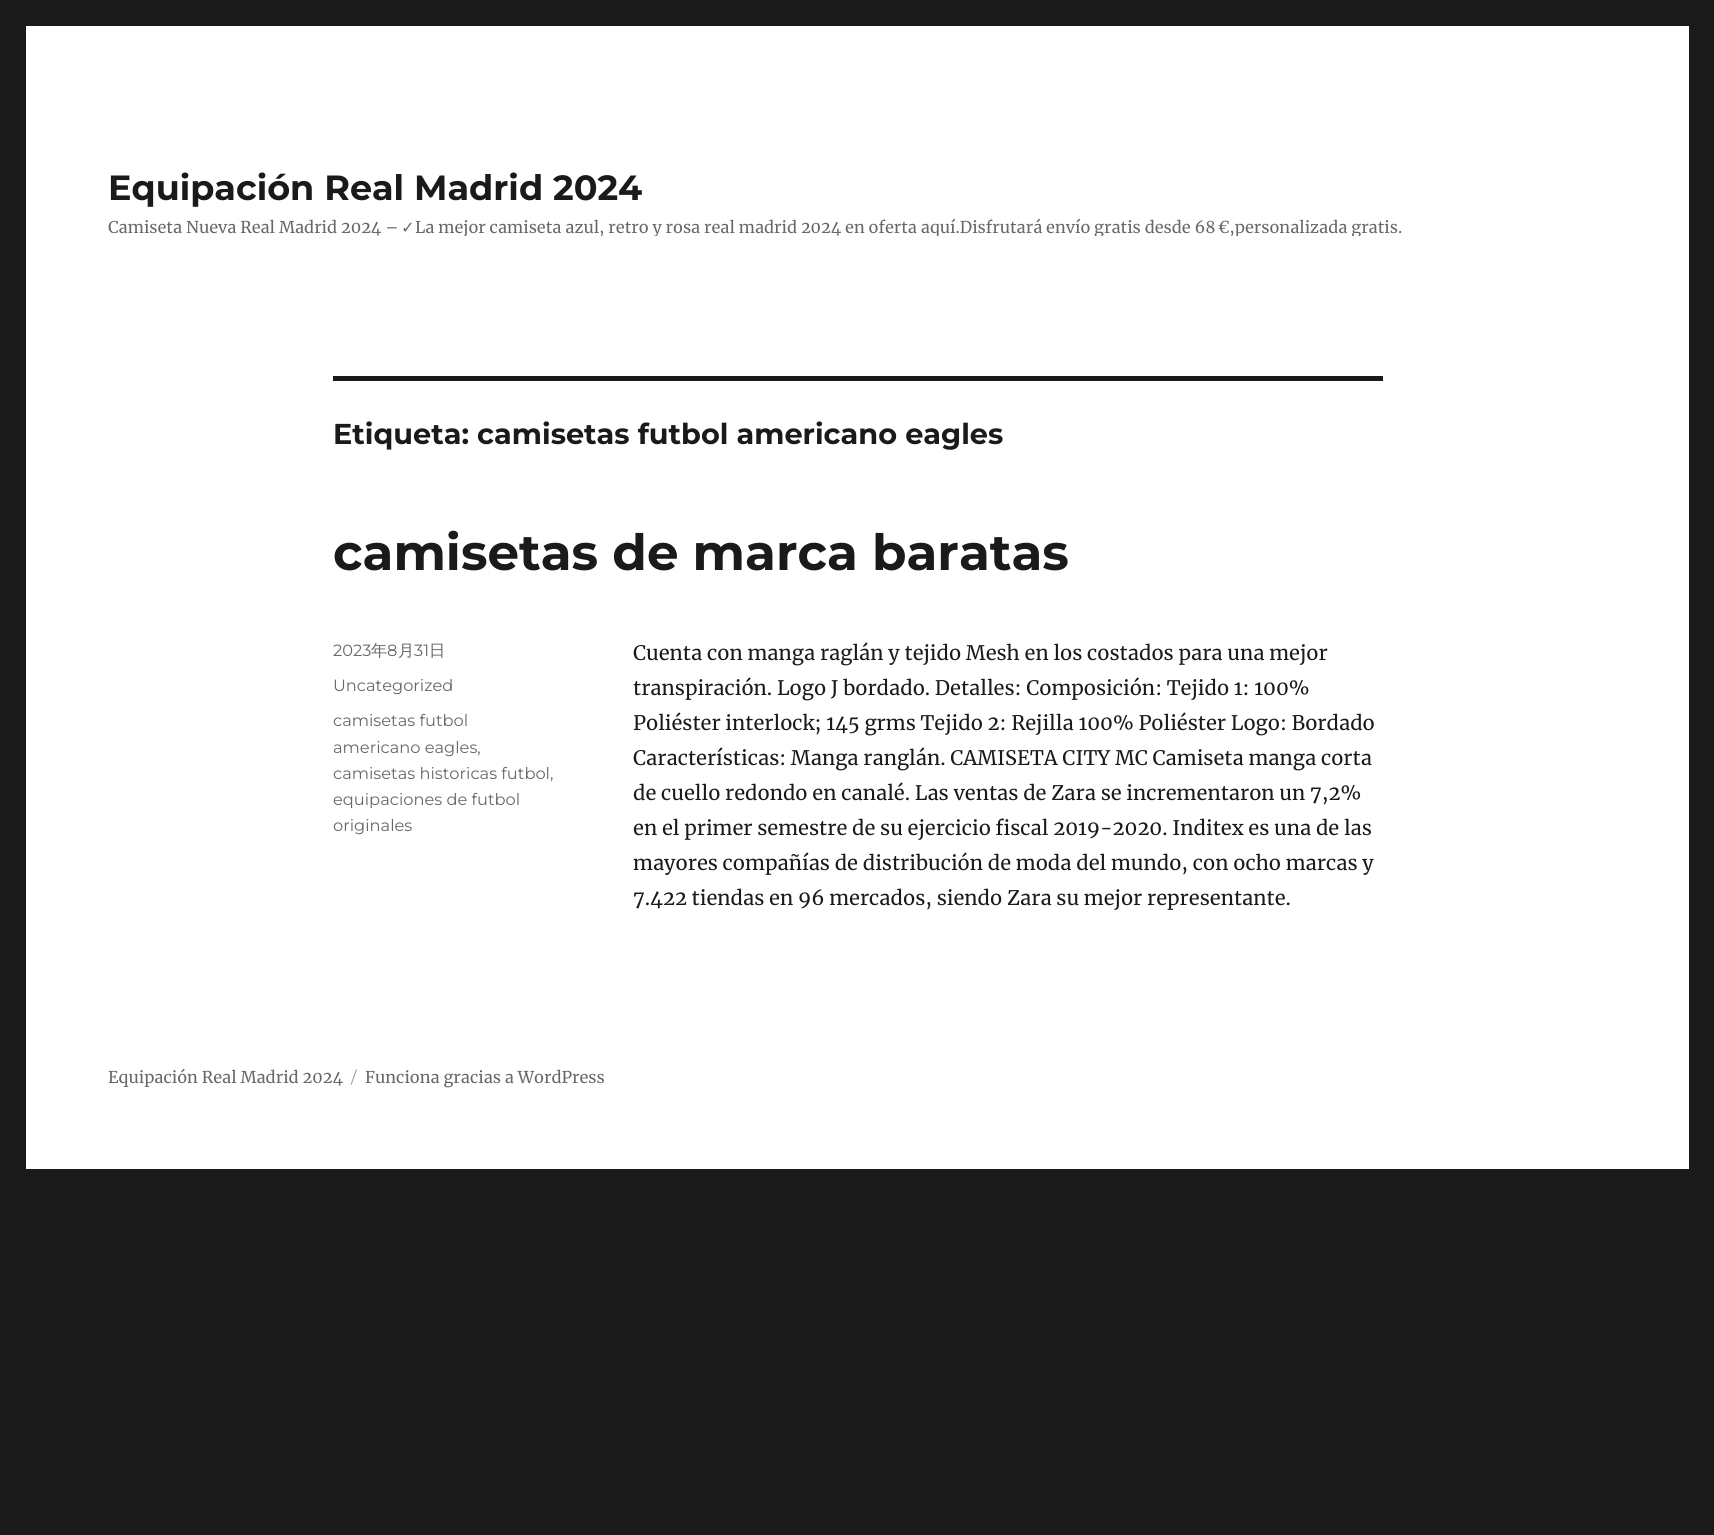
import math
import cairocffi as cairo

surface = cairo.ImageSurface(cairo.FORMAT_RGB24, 1714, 1535)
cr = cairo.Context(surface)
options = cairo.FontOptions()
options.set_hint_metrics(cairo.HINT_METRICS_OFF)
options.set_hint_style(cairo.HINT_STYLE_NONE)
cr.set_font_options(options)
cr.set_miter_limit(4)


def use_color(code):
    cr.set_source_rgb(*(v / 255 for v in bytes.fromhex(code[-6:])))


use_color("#1a1a1a")
cr.paint()
use_color("#ffffff")
cr.rectangle(26, 26, 1663, 1143)
cr.fill()
cr.select_font_face("Montserrat Thin")
cr.set_font_size(35)
use_color("#1a1a1a")
cr.move_to(108, 200)
cr.show_text("Equipación Real Madrid 2024")
cr.select_font_face("Merriweather")
cr.set_font_size(16.25)
use_color("#686868")
cr.move_to(108, 233)
cr.show_text("Camiseta Nueva Real Madrid 2024 –")
cr.select_font_face("DejaVu Sans")
cr.move_to(401, 233)
cr.show_text("✓")
cr.save()
cr.rectangle(108, 166, 1295, 70)
cr.clip()
cr.select_font_face("Merriweather")
cr.move_to(415, 233)
cr.show_text("La mejor camiseta azul, retro y rosa real madrid 2024 en oferta aquí.Disfrutará envío gratis desde 68")
cr.move_to(1218, 233)
cr.show_text("€,personalizada gratis.")
cr.restore()
use_color("#1a1a1a")
cr.rectangle(333, 376, 1050, 5)
cr.fill()
cr.select_font_face("Montserrat Thin")
cr.set_font_size(28.75)
cr.move_to(333, 444)
cr.show_text("Etiqueta: camisetas futbol americano eagles")
cr.set_font_size(50)
cr.move_to(333, 570)
cr.show_text("camisetas de marca baratas")
cr.select_font_face("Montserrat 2 Thin")
cr.set_font_size(16.25)
use_color("#686868")
cr.move_to(333, 656)
cr.show_text("2023")
cr.select_font_face("WenQuanYi Zen Hei Medium")
cr.move_to(371, 656)
cr.show_text("年")
cr.select_font_face("Montserrat 2 Thin")
cr.move_to(387, 656)
cr.show_text("8")
cr.select_font_face("WenQuanYi Zen Hei Medium")
cr.move_to(398, 656)
cr.show_text("月")
cr.select_font_face("Montserrat 2 Thin")
cr.move_to(414, 656)
cr.show_text("31")
cr.select_font_face("WenQuanYi Zen Hei Medium")
cr.move_to(429, 656)
cr.show_text("日")
cr.select_font_face("Montserrat 2 Thin")
cr.move_to(333, 691)
cr.show_text("Uncategorized")
cr.move_to(333, 726)
cr.show_text("camisetas futbol")
cr.move_to(333, 753)
cr.show_text("americano eagles,")
cr.move_to(333, 779)
cr.show_text("camisetas historicas futbol,")
cr.move_to(333, 805)
cr.show_text("equipaciones de futbol")
cr.move_to(333, 831)
cr.show_text("originales")
cr.select_font_face("Merriweather")
cr.set_font_size(20)
use_color("#1a1a1a")
cr.move_to(633, 660)
cr.show_text("Cuenta con manga raglán y tejido Mesh en los costados para una mejor")
cr.move_to(633, 695)
cr.show_text("transpiración. Logo J bordado. Detalles: Composición: Tejido 1: 100%")
cr.move_to(633, 730)
cr.show_text("Poliéster interlock; 145 grms Tejido 2: Rejilla 100% Poliéster Logo: Bordado")
cr.move_to(633, 765)
cr.show_text("Características: Manga ranglán. CAMISETA CITY MC Camiseta manga corta")
cr.move_to(633, 800)
cr.show_text("de cuello redondo en canalé. Las ventas de Zara se incrementaron un 7,2%")
cr.move_to(633, 835)
cr.show_text("en el primer semestre de su ejercicio fiscal 2019-2020. Inditex es una de las")
cr.move_to(633, 870)
cr.show_text("mayores compañías de distribución de moda del mundo, con ocho marcas y")
cr.move_to(633, 905)
cr.show_text("7.422 tiendas en 96 mercados, siendo Zara su mejor representante.")
cr.set_font_size(16.25)
use_color("#686868")
cr.move_to(108, 1083)
cr.show_text("Equipación Real Madrid 2024")
cr.select_font_face("Montserrat 2 Thin")
use_color("#959595")
cr.move_to(351, 1083)
cr.show_text("/")
cr.select_font_face("Merriweather")
use_color("#686868")
cr.move_to(365, 1083)
cr.show_text("Funciona gracias a WordPress")
surface.write_to_png("result.png")
